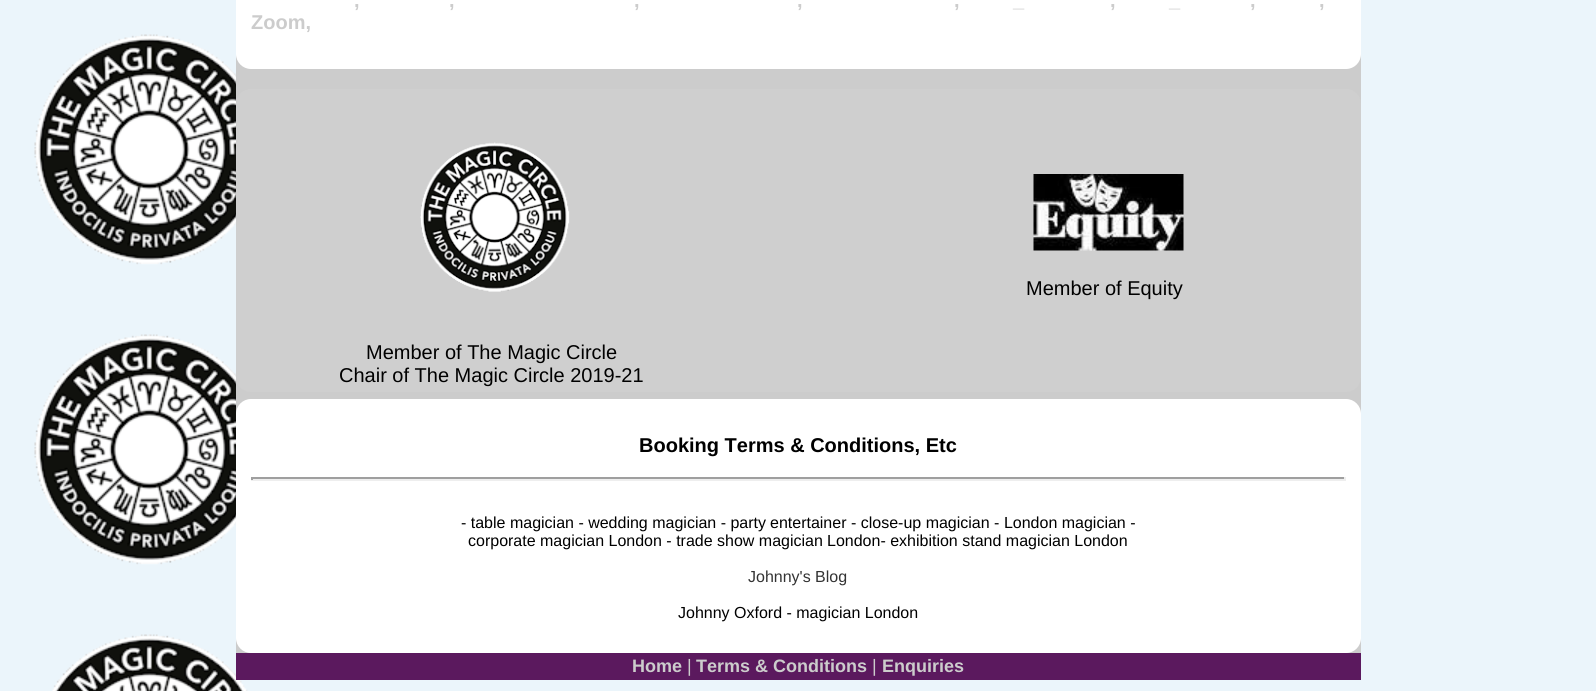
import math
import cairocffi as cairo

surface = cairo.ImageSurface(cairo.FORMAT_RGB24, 1596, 691)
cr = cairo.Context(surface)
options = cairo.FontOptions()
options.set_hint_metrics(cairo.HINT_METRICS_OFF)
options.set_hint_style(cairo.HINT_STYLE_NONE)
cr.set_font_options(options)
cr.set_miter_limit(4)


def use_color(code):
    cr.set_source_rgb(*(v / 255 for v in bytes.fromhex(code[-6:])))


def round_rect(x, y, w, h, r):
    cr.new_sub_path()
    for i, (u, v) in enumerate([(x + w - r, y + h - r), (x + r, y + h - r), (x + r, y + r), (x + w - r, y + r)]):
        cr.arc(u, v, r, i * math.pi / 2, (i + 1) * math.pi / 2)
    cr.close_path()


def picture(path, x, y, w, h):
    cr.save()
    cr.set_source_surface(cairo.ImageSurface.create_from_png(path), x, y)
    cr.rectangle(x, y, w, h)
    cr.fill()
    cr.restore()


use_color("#ebf5fb")
cr.paint()
picture("img1.png", 34, 34, 214, 657)
use_color("#cccccc")
cr.rectangle(236, 54, 1125, 599)
cr.fill()
use_color("#ffffff")
round_rect(236, -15, 1125, 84, 15)
cr.fill()
cr.select_font_face("Liberation Sans", cairo.FONT_SLANT_NORMAL, cairo.FONT_WEIGHT_BOLD)
cr.set_font_size(20)
use_color("#cccccc")
cr.move_to(354, 7)
cr.show_text(",")
cr.move_to(449, 7)
cr.show_text(",")
cr.move_to(634, 7)
cr.show_text(",")
cr.move_to(797, 7)
cr.show_text(",")
cr.move_to(954, 7)
cr.show_text(",")
cr.move_to(1013, 7)
cr.show_text("_")
cr.move_to(1110, 7)
cr.show_text(",")
cr.move_to(1169, 7)
cr.show_text("_")
cr.move_to(1250, 7)
cr.show_text(",")
cr.move_to(1319, 7)
cr.show_text(",")
cr.move_to(251, 29)
cr.show_text("Zoom,")
use_color("#cfcfcf")
round_rect(236, 89, 1125, 303, 15)
cr.fill()
picture("img2.png", 1033, 174, 151, 77)
cr.select_font_face("Liberation Sans")
use_color("#000000")
cr.move_to(1026, 295)
cr.show_text("Member of Equity")
picture("img3.png", 420, 142, 150, 150)
cr.move_to(366, 359)
cr.show_text("Member of The Magic Circle")
cr.move_to(339, 382)
cr.show_text("Chair of The Magic Circle 2019-21")
use_color("#ffffff")
round_rect(236, 399, 1125, 254, 15)
cr.fill()
cr.select_font_face("Liberation Sans", cairo.FONT_SLANT_NORMAL, cairo.FONT_WEIGHT_BOLD)
use_color("#000000")
cr.move_to(639, 452)
cr.show_text("Booking Terms & Conditions, Etc")
use_color("#9f9f9f")
cr.rectangle(251, 477, 1095, 2)
cr.fill()
use_color("#eeeeee")
cr.rectangle(1344, 477, 2, 3)
cr.fill()
cr.rectangle(251, 479, 1095, 2)
cr.fill()
use_color("#9f9f9f")
cr.rectangle(251, 477, 2, 3)
cr.fill()
cr.select_font_face("Liberation Sans")
cr.set_font_size(16)
use_color("#000000")
cr.move_to(461, 528)
cr.show_text("- table magician - wedding magician - party")
cr.move_to(770, 528)
cr.show_text("entertainer - close-up magician - London magician -")
cr.move_to(468, 546)
cr.show_text("corporate magician London - trade show magician")
cr.move_to(827, 546)
cr.show_text("London- exhibition stand magician London")
use_color("#333333")
cr.move_to(748, 582)
cr.show_text("Johnny's Blog")
use_color("#000000")
cr.move_to(678, 618)
cr.show_text("Johnny Oxford - magician London")
use_color("#5b195e")
cr.rectangle(236, 653, 1125, 27)
cr.fill()
cr.select_font_face("Liberation Sans", cairo.FONT_SLANT_NORMAL, cairo.FONT_WEIGHT_BOLD)
cr.set_font_size(18)
use_color("#cccccc")
cr.move_to(632, 672)
cr.show_text("Home")
cr.select_font_face("Liberation Sans")
cr.move_to(687, 672)
cr.show_text("|")
cr.select_font_face("Liberation Sans", cairo.FONT_SLANT_NORMAL, cairo.FONT_WEIGHT_BOLD)
cr.move_to(696, 672)
cr.show_text("Terms & Conditions")
cr.select_font_face("Liberation Sans")
cr.move_to(872, 672)
cr.show_text("|")
cr.select_font_face("Liberation Sans", cairo.FONT_SLANT_NORMAL, cairo.FONT_WEIGHT_BOLD)
cr.move_to(882, 672)
cr.show_text("Enquiries")
surface.write_to_png("result.png")
